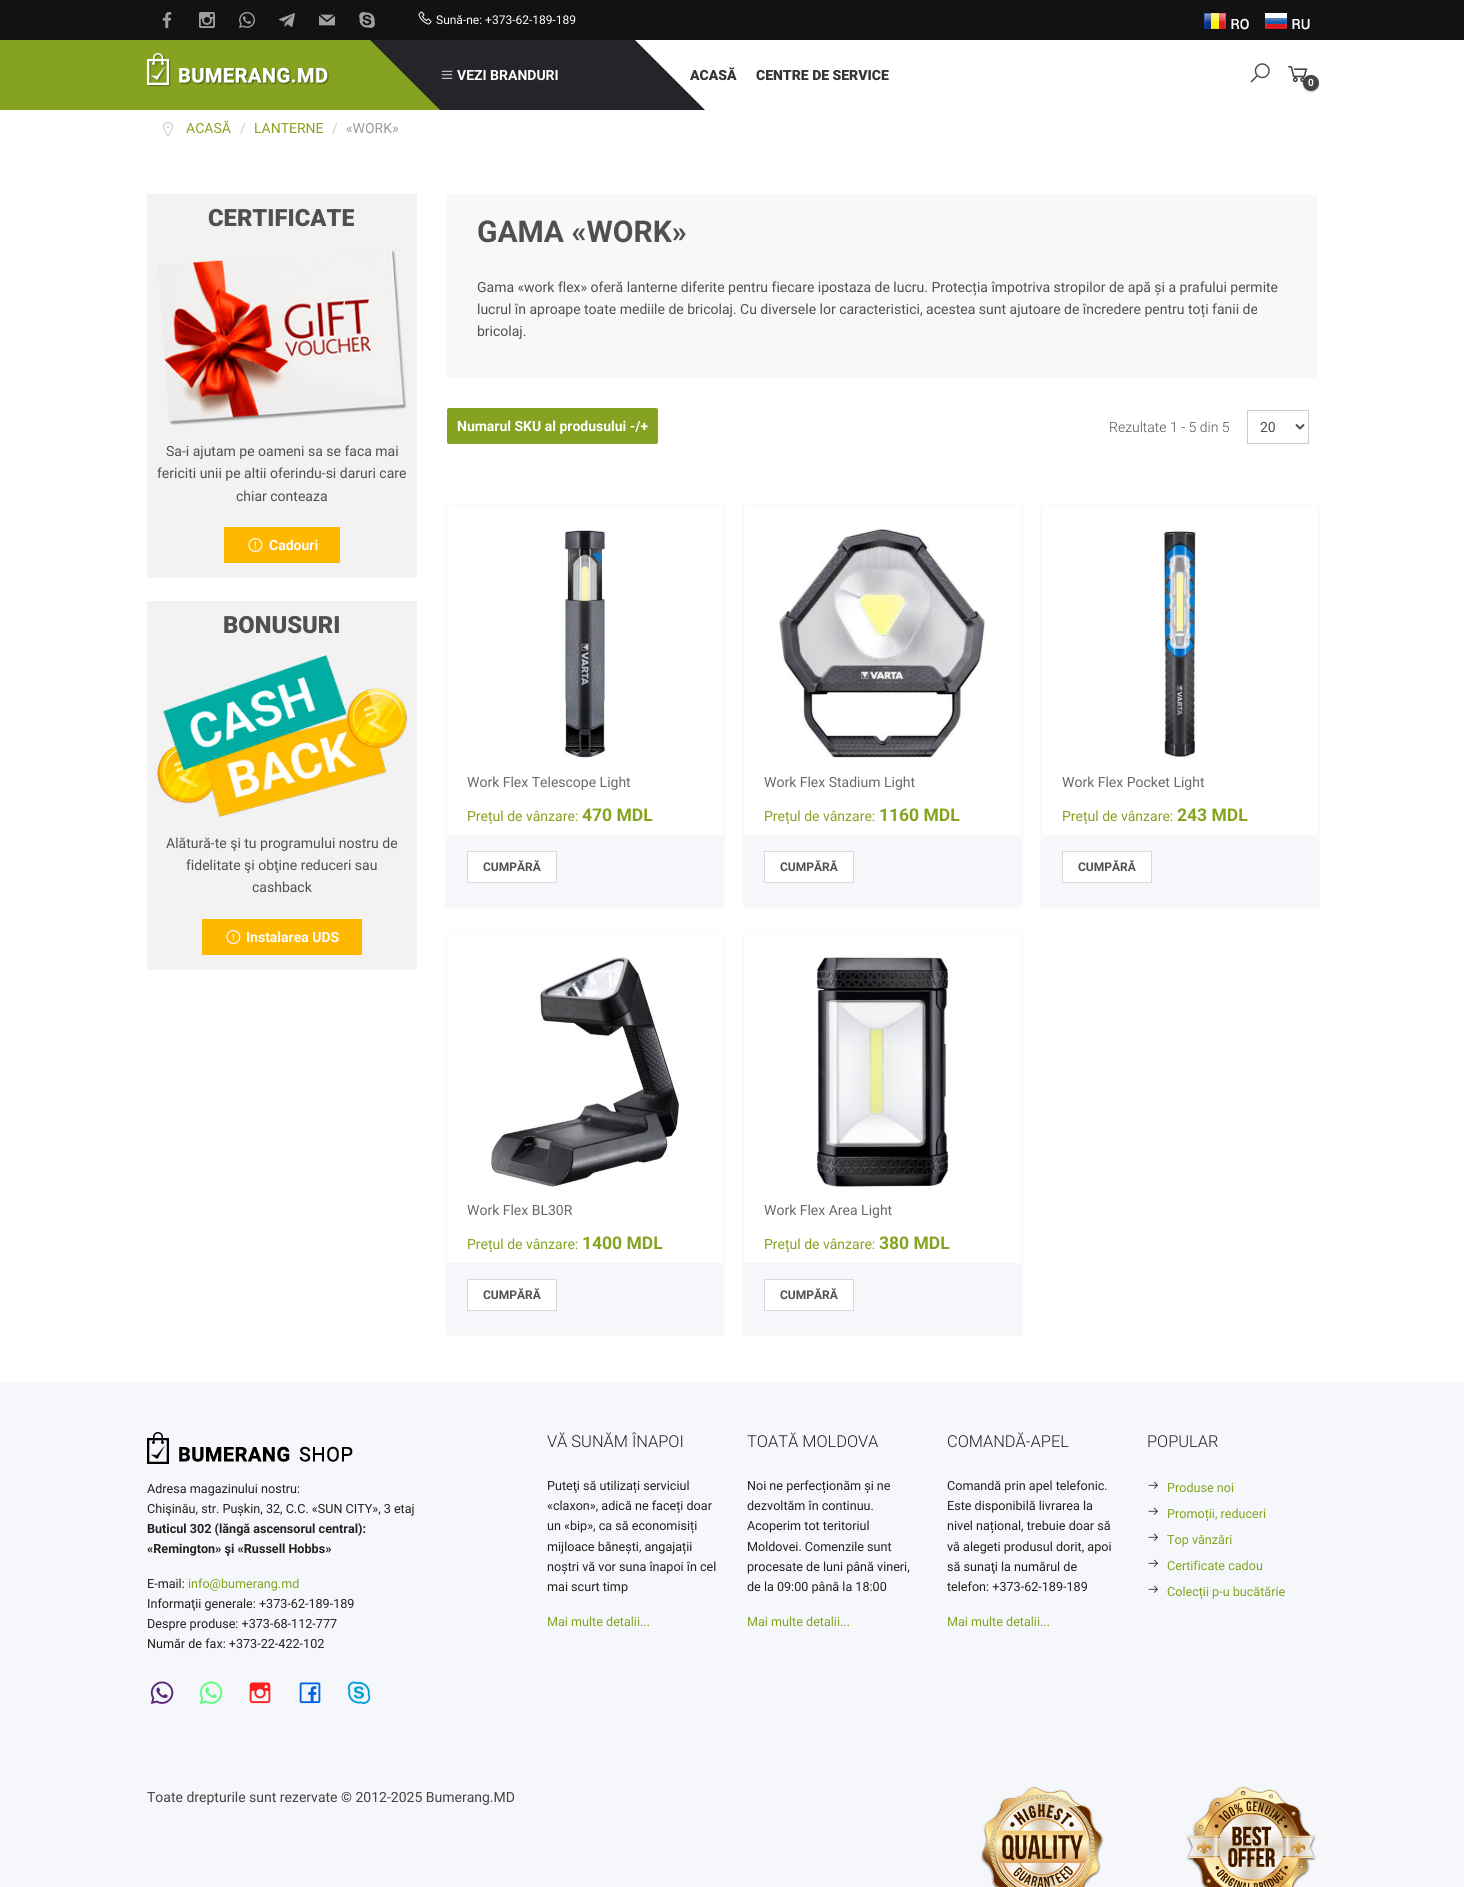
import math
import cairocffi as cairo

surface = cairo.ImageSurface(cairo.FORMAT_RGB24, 1464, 1887)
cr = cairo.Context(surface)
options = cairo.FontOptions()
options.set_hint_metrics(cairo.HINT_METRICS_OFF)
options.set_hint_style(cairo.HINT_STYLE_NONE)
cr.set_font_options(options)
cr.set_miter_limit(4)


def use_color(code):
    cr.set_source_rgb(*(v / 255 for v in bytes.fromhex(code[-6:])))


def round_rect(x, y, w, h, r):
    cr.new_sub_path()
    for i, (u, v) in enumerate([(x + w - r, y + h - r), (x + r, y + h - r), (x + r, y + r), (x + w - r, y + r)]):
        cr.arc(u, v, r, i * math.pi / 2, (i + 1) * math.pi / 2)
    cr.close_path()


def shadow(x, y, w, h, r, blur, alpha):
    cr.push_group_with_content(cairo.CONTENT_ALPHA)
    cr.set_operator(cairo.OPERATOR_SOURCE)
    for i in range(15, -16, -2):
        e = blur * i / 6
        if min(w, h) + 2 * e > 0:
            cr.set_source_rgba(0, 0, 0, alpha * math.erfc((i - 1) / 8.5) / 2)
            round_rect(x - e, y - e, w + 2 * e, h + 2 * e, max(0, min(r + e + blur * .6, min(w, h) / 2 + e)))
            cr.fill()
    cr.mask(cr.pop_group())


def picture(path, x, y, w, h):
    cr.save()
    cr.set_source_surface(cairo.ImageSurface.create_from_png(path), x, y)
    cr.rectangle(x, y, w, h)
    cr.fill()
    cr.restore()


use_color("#ffffff")
cr.paint()
use_color("#121214")
cr.rectangle(0, 0, 1464, 40)
cr.fill()
picture("img1.png", 162, 12, 10, 16)
picture("img2.png", 199, 12, 16, 16)
picture("img3.png", 239, 12, 16, 16)
picture("img4.png", 279, 13, 16, 14)
picture("img5.png", 319, 14, 16, 12)
picture("img6.png", 359, 12, 16, 16)
picture("img7.png", 418, 11, 14, 14)
cr.select_font_face("Roboto")
cr.set_font_size(12)
use_color("#ffffff")
cr.move_to(436, 24)
cr.show_text("Sună-ne: +373-62-189-189")
picture("img8.png", 1204, 13, 46, 18)
picture("img9.png", 1265, 13, 46, 18)
use_color("#85a321")
cr.rectangle(0, 40, 440, 70)
cr.fill()
picture("img10.png", 147, 53, 183, 34)
use_color("#252529")
cr.new_path()
cr.move_to(440, 40)
cr.line_to(440, 110)
cr.line_to(370, 40)
cr.close_path()
cr.fill()
cr.rectangle(440, 40, 195, 70)
cr.fill()
picture("img11.png", 441, 70, 12, 9)
cr.select_font_face("Roboto", cairo.FONT_SLANT_NORMAL, cairo.FONT_WEIGHT_BOLD)
cr.set_font_size(14)
use_color("#ffffff")
cr.move_to(457, 80)
cr.show_text("VEZI BRANDURI")
use_color("#252529")
cr.new_path()
cr.move_to(635, 110)
cr.line_to(635, 40)
cr.line_to(705, 110)
cr.close_path()
cr.fill()
cr.select_font_face("Roboto Black")
use_color("#353535")
cr.move_to(690, 80)
cr.show_text("ACASĂ")
cr.move_to(756, 80)
cr.show_text("CENTRE DE SERVICE")
picture("img12.png", 1250, 63, 20, 20)
picture("img13.png", 1288, 65, 20, 18)
use_color("#000000")
shadow(1303, 76, 16, 16, 8, 1, 0.22)
use_color("#444444")
cr.arc(1311, 83, 8, 0, 2 * math.pi)
cr.fill()
cr.select_font_face("Roboto", cairo.FONT_SLANT_NORMAL, cairo.FONT_WEIGHT_BOLD)
cr.set_font_size(10)
use_color("#ffffff")
cr.move_to(1308, 86)
cr.show_text("0")
picture("img14.png", 163, 122, 10, 15)
cr.select_font_face("Roboto")
cr.set_font_size(14)
use_color("#85a321")
cr.move_to(186, 133)
cr.show_text("ACASĂ")
use_color("#cccccc")
cr.move_to(240, 133)
cr.show_text("/")
use_color("#85a321")
cr.move_to(254, 133)
cr.show_text("LANTERNE")
use_color("#cccccc")
cr.move_to(332, 133)
cr.show_text("/")
use_color("#999999")
cr.move_to(346, 133)
cr.show_text("«WORK»")
use_color("#f2f2f2")
cr.rectangle(147, 194, 270, 384)
cr.fill()
cr.select_font_face("Roboto Black")
cr.set_font_size(23.75)
use_color("#505050")
cr.move_to(208, 226)
cr.show_text("CERTIFICATE")
picture("img15.png", 158, 248, 249, 177)
cr.select_font_face("Roboto")
cr.set_font_size(14)
cr.move_to(166, 456)
cr.show_text("Sa-i ajutam pe oameni sa se faca mai")
cr.move_to(157, 478)
cr.show_text("fericiti unii pe altii oferindu-si daruri care")
cr.move_to(236, 501)
cr.show_text("chiar conteaza")
use_color("#ffb700")
cr.rectangle(224, 527, 116, 36)
cr.fill()
picture("img16.png", 248, 538, 15, 14)
cr.select_font_face("Roboto", cairo.FONT_SLANT_NORMAL, cairo.FONT_WEIGHT_BOLD)
use_color("#ffffff")
cr.move_to(269, 550)
cr.show_text("Cadouri")
use_color("#f2f2f2")
cr.rectangle(147, 601, 270, 369)
cr.fill()
cr.select_font_face("Roboto Black")
cr.set_font_size(23.75)
use_color("#505050")
cr.move_to(223, 633)
cr.show_text("BONUSURI")
picture("img17.png", 157, 655, 250, 162)
cr.select_font_face("Roboto")
cr.set_font_size(14)
cr.move_to(166, 848)
cr.show_text("Alătură-te şi tu programului nostru de")
cr.move_to(186, 870)
cr.show_text("fidelitate şi obţine reduceri sau")
cr.move_to(252, 892)
cr.show_text("cashback")
use_color("#ffb700")
cr.rectangle(202, 919, 160, 36)
cr.fill()
picture("img16.png", 226, 930, 15, 14)
cr.select_font_face("Roboto", cairo.FONT_SLANT_NORMAL, cairo.FONT_WEIGHT_BOLD)
use_color("#ffffff")
cr.move_to(246, 942)
cr.show_text("Instalarea UDS")
use_color("#f8f8f8")
cr.rectangle(447, 194, 870, 184)
cr.fill()
cr.set_font_size(30)
use_color("#505050")
cr.move_to(477, 242)
cr.show_text("GAMA «WORK»")
cr.select_font_face("Roboto")
cr.set_font_size(14)
cr.move_to(477, 292)
cr.show_text("Gama «work flex» oferă lanterne diferite pentru fiecare ipostaza de lucru. Protecția împotriva stropilor de apă și a prafului permite")
cr.move_to(477, 314)
cr.show_text("lucrul în aproape toate mediile de bricolaj. Cu diversele lor caracteristici, acestea sunt ajutoare de încredere pentru toți fanii de")
cr.move_to(477, 336)
cr.show_text("bricolaj.")
use_color("#85a321")
round_rect(447, 408, 211, 36, 2)
cr.fill()
cr.select_font_face("Roboto", cairo.FONT_SLANT_NORMAL, cairo.FONT_WEIGHT_BOLD)
use_color("#ffffff")
cr.move_to(457, 431)
cr.show_text("Numarul SKU al produsului -/+")
cr.select_font_face("Roboto Light")
use_color("#505050")
cr.move_to(1109, 432)
cr.show_text("Rezultate 1 - 5 din 5")
cr.rectangle(1247.5, 410.5, 61, 33)
use_color("#cccccc")
cr.set_line_width(1)
cr.stroke()
cr.new_path()
cr.move_to(1296, 424.5)
cr.line_to(1300, 428.5)
cr.line_to(1304, 424.5)
use_color("#505050")
cr.set_line_width(2)
cr.stroke()
cr.select_font_face("Roboto")
cr.move_to(1260, 432)
cr.show_text("20")
cr.save()
cr.set_fill_rule(cairo.FILL_RULE_EVEN_ODD)
cr.new_path()
cr.move_to(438, 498)
cr.line_to(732, 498)
cr.line_to(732, 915)
cr.line_to(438, 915)
cr.close_path()
cr.move_to(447, 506)
cr.line_to(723, 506)
cr.line_to(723, 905)
cr.line_to(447, 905)
cr.close_path()
cr.clip()
use_color("#000000")
shadow(447, 507, 276, 399, 0, 2.5, 0.07)
cr.restore()
picture("img18.png", 564, 530, 41, 228)
use_color("#696969")
cr.move_to(467, 787)
cr.show_text("Work Flex Telescope Light")
use_color("#85a321")
cr.move_to(467, 821)
cr.show_text("Prețul de vânzare:")
cr.select_font_face("Roboto", cairo.FONT_SLANT_NORMAL, cairo.FONT_WEIGHT_BOLD)
cr.set_font_size(17.5)
cr.move_to(582, 821)
cr.show_text("470 MDL")
use_color("#f5f7fa")
cr.rectangle(447, 835, 276, 70)
cr.fill()
use_color("#ffffff")
cr.rectangle(467.5, 851.5, 89, 31)
cr.fill_preserve()
use_color("#d9d9d9")
cr.set_line_width(1)
cr.stroke()
cr.set_font_size(12)
use_color("#505050")
cr.move_to(483, 871)
cr.show_text("CUMPĂRĂ")
cr.save()
cr.set_fill_rule(cairo.FILL_RULE_EVEN_ODD)
cr.new_path()
cr.move_to(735, 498)
cr.line_to(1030, 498)
cr.line_to(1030, 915)
cr.line_to(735, 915)
cr.close_path()
cr.move_to(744, 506)
cr.line_to(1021, 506)
cr.line_to(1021, 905)
cr.line_to(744, 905)
cr.close_path()
cr.clip()
use_color("#000000")
shadow(744, 507, 277, 399, 0, 2.5, 0.07)
cr.restore()
picture("img19.png", 779, 529, 207, 229)
cr.select_font_face("Roboto")
cr.set_font_size(14)
use_color("#696969")
cr.move_to(764, 787)
cr.show_text("Work Flex Stadium Light")
use_color("#85a321")
cr.move_to(764, 821)
cr.show_text("Prețul de vânzare:")
cr.select_font_face("Roboto", cairo.FONT_SLANT_NORMAL, cairo.FONT_WEIGHT_BOLD)
cr.set_font_size(17.5)
cr.move_to(879, 821)
cr.show_text("1160 MDL")
use_color("#f5f7fa")
cr.rectangle(744, 835, 277, 70)
cr.fill()
use_color("#ffffff")
cr.rectangle(764.5, 851.5, 89, 31)
cr.fill_preserve()
use_color("#d9d9d9")
cr.stroke()
cr.set_font_size(12)
use_color("#505050")
cr.move_to(780, 871)
cr.show_text("CUMPĂRĂ")
cr.save()
cr.set_fill_rule(cairo.FILL_RULE_EVEN_ODD)
cr.new_path()
cr.move_to(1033, 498)
cr.line_to(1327, 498)
cr.line_to(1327, 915)
cr.line_to(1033, 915)
cr.close_path()
cr.move_to(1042, 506)
cr.line_to(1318, 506)
cr.line_to(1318, 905)
cr.line_to(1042, 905)
cr.close_path()
cr.clip()
use_color("#000000")
shadow(1042, 507, 276, 399, 0, 2.5, 0.07)
cr.restore()
picture("img20.png", 1160, 531, 36, 227)
cr.select_font_face("Roboto")
cr.set_font_size(14)
use_color("#696969")
cr.move_to(1062, 787)
cr.show_text("Work Flex Pocket Light")
use_color("#85a321")
cr.move_to(1062, 821)
cr.show_text("Prețul de vânzare:")
cr.select_font_face("Roboto", cairo.FONT_SLANT_NORMAL, cairo.FONT_WEIGHT_BOLD)
cr.set_font_size(17.5)
cr.move_to(1177, 821)
cr.show_text("243 MDL")
use_color("#f5f7fa")
cr.rectangle(1042, 835, 276, 70)
cr.fill()
use_color("#ffffff")
cr.rectangle(1062.5, 851.5, 89, 31)
cr.fill_preserve()
use_color("#d9d9d9")
cr.stroke()
cr.set_font_size(12)
use_color("#505050")
cr.move_to(1078, 871)
cr.show_text("CUMPĂRĂ")
cr.save()
cr.set_fill_rule(cairo.FILL_RULE_EVEN_ODD)
cr.new_path()
cr.move_to(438, 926)
cr.line_to(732, 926)
cr.line_to(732, 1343)
cr.line_to(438, 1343)
cr.close_path()
cr.move_to(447, 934)
cr.line_to(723, 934)
cr.line_to(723, 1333)
cr.line_to(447, 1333)
cr.close_path()
cr.clip()
use_color("#000000")
shadow(447, 935, 276, 399, 0, 2.5, 0.07)
cr.restore()
picture("img21.png", 490, 957, 189, 230)
cr.select_font_face("Roboto")
cr.set_font_size(14)
use_color("#696969")
cr.move_to(467, 1215)
cr.show_text("Work Flex BL30R")
use_color("#85a321")
cr.move_to(467, 1249)
cr.show_text("Prețul de vânzare:")
cr.select_font_face("Roboto", cairo.FONT_SLANT_NORMAL, cairo.FONT_WEIGHT_BOLD)
cr.set_font_size(17.5)
cr.move_to(582, 1249)
cr.show_text("1400 MDL")
use_color("#f5f7fa")
cr.rectangle(447, 1263, 276, 70)
cr.fill()
use_color("#ffffff")
cr.rectangle(467.5, 1279.5, 89, 31)
cr.fill_preserve()
use_color("#d9d9d9")
cr.stroke()
cr.set_font_size(12)
use_color("#505050")
cr.move_to(483, 1299)
cr.show_text("CUMPĂRĂ")
cr.save()
cr.set_fill_rule(cairo.FILL_RULE_EVEN_ODD)
cr.new_path()
cr.move_to(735, 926)
cr.line_to(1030, 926)
cr.line_to(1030, 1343)
cr.line_to(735, 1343)
cr.close_path()
cr.move_to(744, 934)
cr.line_to(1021, 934)
cr.line_to(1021, 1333)
cr.line_to(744, 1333)
cr.close_path()
cr.clip()
use_color("#000000")
shadow(744, 935, 277, 399, 0, 2.5, 0.07)
cr.restore()
picture("img22.png", 816, 957, 135, 230)
cr.select_font_face("Roboto")
cr.set_font_size(14)
use_color("#696969")
cr.move_to(764, 1215)
cr.show_text("Work Flex Area Light")
use_color("#85a321")
cr.move_to(764, 1249)
cr.show_text("Prețul de vânzare:")
cr.select_font_face("Roboto", cairo.FONT_SLANT_NORMAL, cairo.FONT_WEIGHT_BOLD)
cr.set_font_size(17.5)
cr.move_to(879, 1249)
cr.show_text("380 MDL")
use_color("#f5f7fa")
cr.rectangle(744, 1263, 277, 70)
cr.fill()
use_color("#ffffff")
cr.rectangle(764.5, 1279.5, 89, 31)
cr.fill_preserve()
use_color("#d9d9d9")
cr.stroke()
cr.set_font_size(12)
use_color("#505050")
cr.move_to(780, 1299)
cr.show_text("CUMPĂRĂ")
use_color("#f5f7fa")
cr.rectangle(0, 1382, 1464, 505)
cr.fill()
picture("img23.png", 147, 1432, 206, 32)
cr.select_font_face("Roboto")
cr.set_font_size(12.6)
use_color("#212121")
cr.move_to(147, 1493)
cr.show_text("Adresa magazinului nostru:")
cr.move_to(147, 1513)
cr.show_text("Chişinău, str. Pușkin, 32, C.C. «SUN CITY», 3 etaj")
cr.select_font_face("Roboto", cairo.FONT_SLANT_NORMAL, cairo.FONT_WEIGHT_BOLD)
cr.move_to(147, 1533)
cr.show_text("Buticul 302 (lăngă ascensorul central):")
cr.move_to(147, 1553)
cr.show_text("«Remington» şi «Russell Hobbs»")
cr.select_font_face("Roboto")
cr.move_to(147, 1588)
cr.show_text("E-mail:")
use_color("#85a321")
cr.move_to(188, 1588)
cr.show_text("info@bumerang.md")
use_color("#212121")
cr.move_to(147, 1608)
cr.show_text("Informaţii generale: +373-62-189-189")
cr.move_to(147, 1628)
cr.show_text("Despre produse: +373-68-112-777")
cr.move_to(147, 1648)
cr.show_text("Număr de fax: +373-22-422-102")
picture("img24.png", 150, 1681, 24, 23)
picture("img25.png", 199, 1681, 24, 23)
picture("img26.png", 249, 1682, 22, 22)
picture("img27.png", 299, 1682, 22, 22)
picture("img28.png", 347, 1681, 24, 23)
cr.select_font_face("Roboto Light")
cr.set_font_size(16.4)
cr.move_to(547, 1447)
cr.show_text("VĂ SUNĂM ÎNAPOI")
cr.select_font_face("Roboto")
cr.set_font_size(12.6)
cr.move_to(547, 1490)
cr.show_text("Puteţi să utilizați serviciul")
cr.move_to(547, 1510)
cr.show_text("«claxon», adică ne faceți doar")
cr.move_to(547, 1530)
cr.show_text("un «bip», ca să economisiți")
cr.move_to(547, 1551)
cr.show_text("mijloace bănești, angajații")
cr.move_to(547, 1571)
cr.show_text("noștri vă vor suna înapoi în cel")
cr.move_to(547, 1591)
cr.show_text("mai scurt timp")
use_color("#85a321")
cr.move_to(547, 1626)
cr.show_text("Mai multe detalii...")
cr.select_font_face("Roboto Light")
cr.set_font_size(16.4)
use_color("#212121")
cr.move_to(747, 1447)
cr.show_text("TOATĂ MOLDOVA")
cr.select_font_face("Roboto")
cr.set_font_size(12.6)
cr.move_to(747, 1490)
cr.show_text("Noi ne perfecționăm și ne")
cr.move_to(747, 1510)
cr.show_text("dezvoltăm în continuu.")
cr.move_to(747, 1530)
cr.show_text("Acoperim tot teritoriul")
cr.move_to(747, 1551)
cr.show_text("Moldovei. Comenzile sunt")
cr.move_to(747, 1571)
cr.show_text("procesate de luni până vineri,")
cr.move_to(747, 1591)
cr.show_text("de la 09:00 până la 18:00")
use_color("#85a321")
cr.move_to(747, 1626)
cr.show_text("Mai multe detalii...")
cr.select_font_face("Roboto Light")
cr.set_font_size(16.4)
use_color("#212121")
cr.move_to(947, 1447)
cr.show_text("COMANDĂ-APEL")
cr.select_font_face("Roboto")
cr.set_font_size(12.6)
cr.move_to(947, 1490)
cr.show_text("Comandă prin apel telefonic.")
cr.move_to(947, 1510)
cr.show_text("Este disponibilă livrarea la")
cr.move_to(947, 1530)
cr.show_text("nivel național, trebuie doar să")
cr.move_to(947, 1551)
cr.show_text("vă alegeti produsul dorit, apoi")
cr.move_to(947, 1571)
cr.show_text("să sunaţi la numărul de")
cr.move_to(947, 1591)
cr.show_text("telefon: +373-62-189-189")
use_color("#85a321")
cr.move_to(947, 1626)
cr.show_text("Mai multe detalii...")
cr.select_font_face("Roboto Light")
cr.set_font_size(16.4)
use_color("#212121")
cr.move_to(1147, 1447)
cr.show_text("POPULAR")
picture("img29.png", 1148, 1481, 10, 8)
cr.select_font_face("Roboto")
cr.set_font_size(12.6)
use_color("#85a321")
cr.move_to(1167, 1492)
cr.show_text("Produse noi")
picture("img29.png", 1148, 1507, 10, 8)
cr.move_to(1167, 1518)
cr.show_text("Promoții, reduceri")
picture("img29.png", 1148, 1533, 10, 8)
cr.move_to(1167, 1544)
cr.show_text("Top vănzări")
picture("img29.png", 1148, 1559, 10, 8)
cr.move_to(1167, 1570)
cr.show_text("Certificate cadou")
picture("img29.png", 1148, 1585, 10, 8)
cr.move_to(1167, 1596)
cr.show_text("Colecții p-u bucătărie")
cr.set_font_size(14)
use_color("#444444")
cr.move_to(147, 1802)
cr.show_text("Toate drepturile sunt rezervate © 2012-2025 Bumerang.MD")
picture("img30.png", 981, 1786, 335, 101)
surface.write_to_png("result.png")
